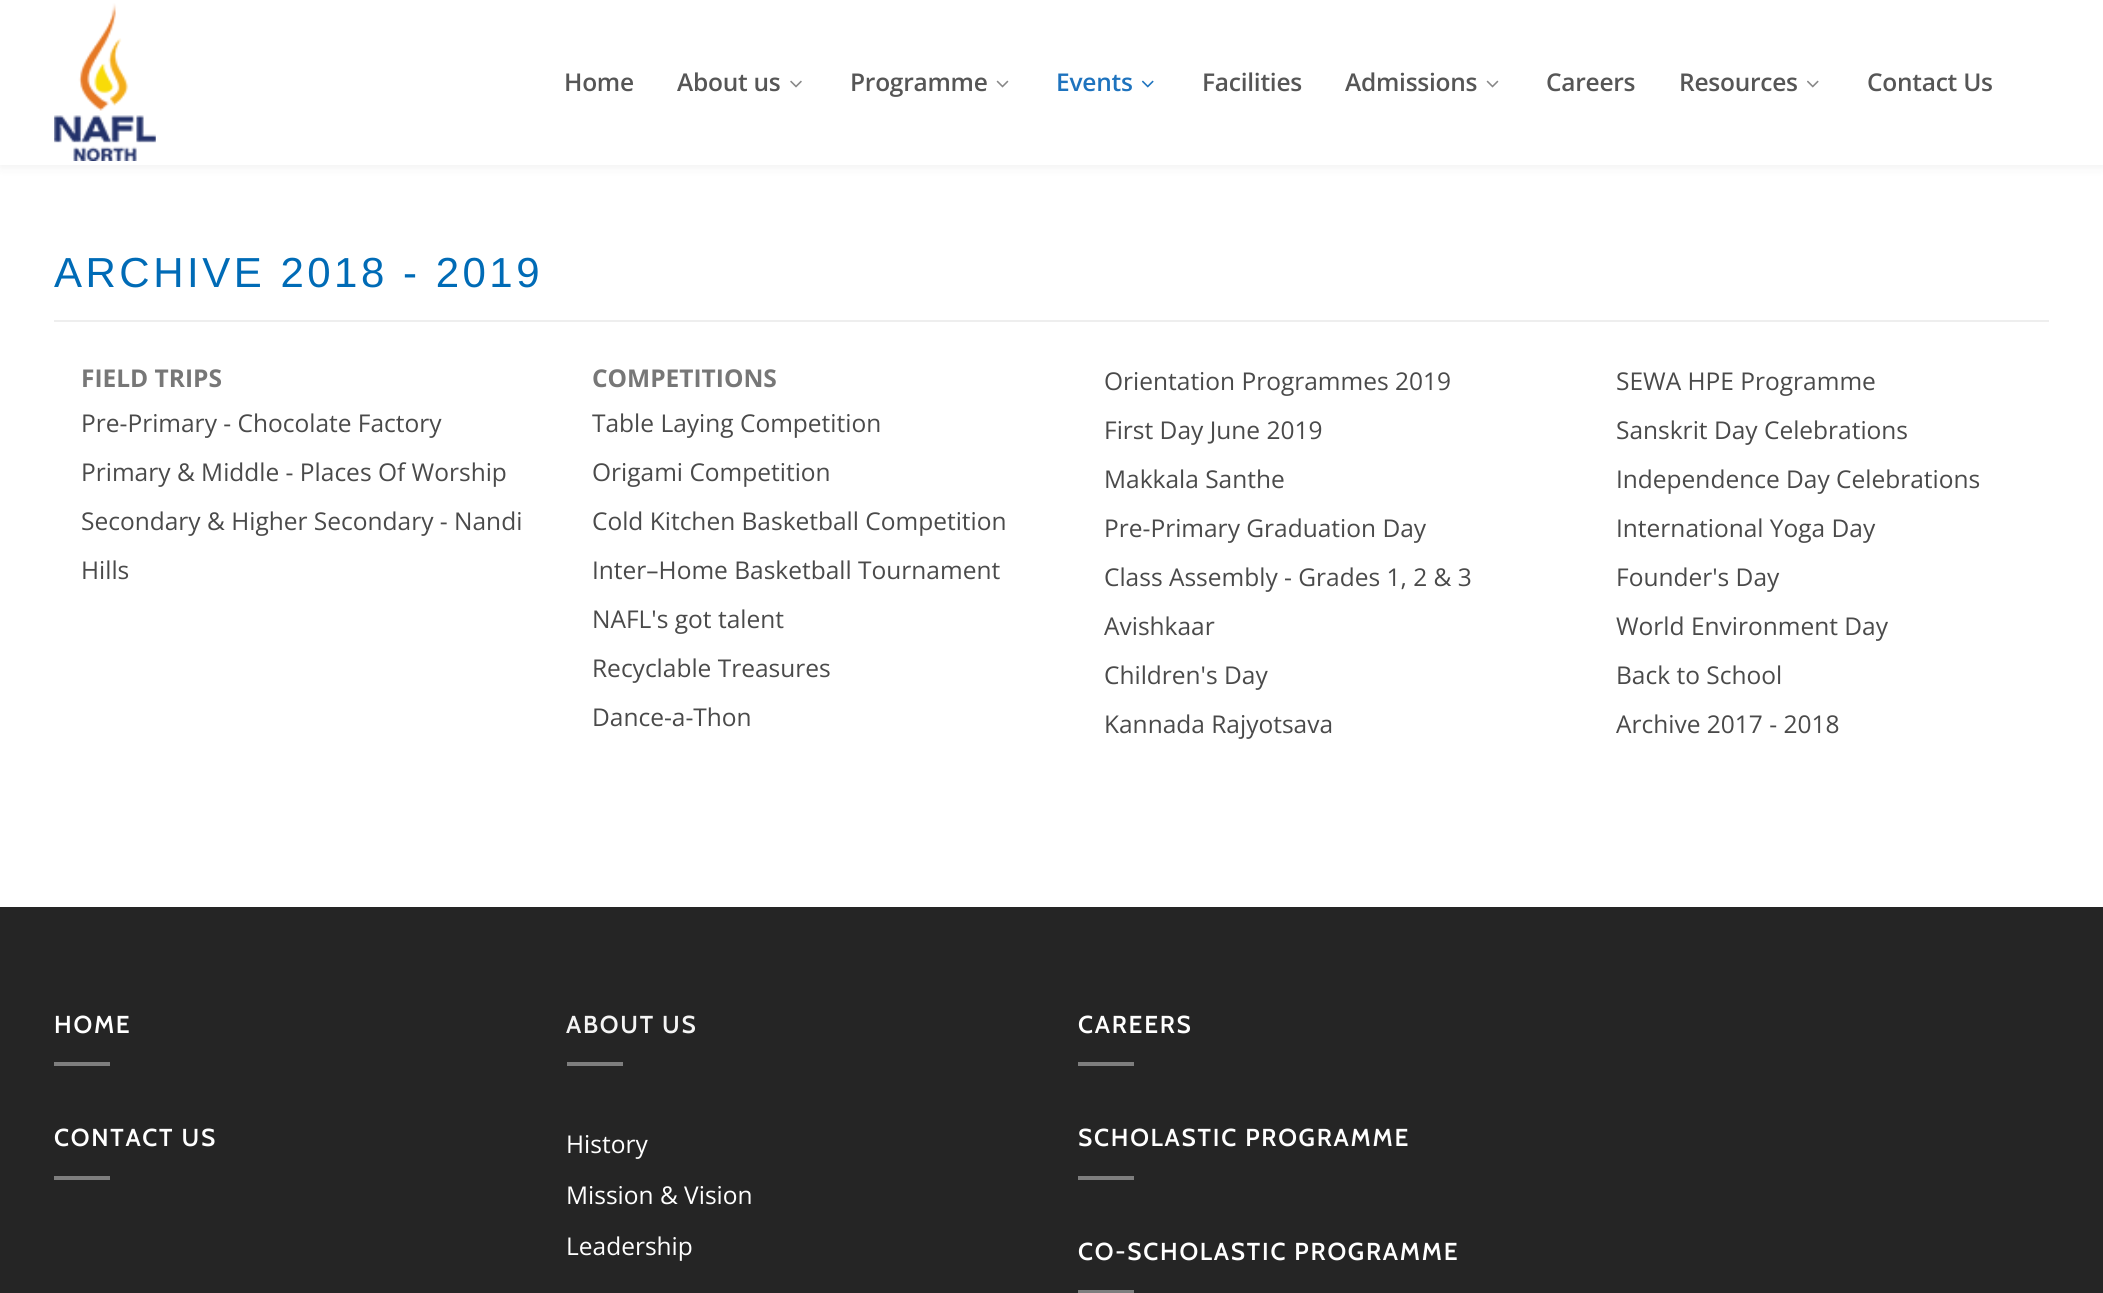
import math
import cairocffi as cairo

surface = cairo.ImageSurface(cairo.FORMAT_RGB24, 2103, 1293)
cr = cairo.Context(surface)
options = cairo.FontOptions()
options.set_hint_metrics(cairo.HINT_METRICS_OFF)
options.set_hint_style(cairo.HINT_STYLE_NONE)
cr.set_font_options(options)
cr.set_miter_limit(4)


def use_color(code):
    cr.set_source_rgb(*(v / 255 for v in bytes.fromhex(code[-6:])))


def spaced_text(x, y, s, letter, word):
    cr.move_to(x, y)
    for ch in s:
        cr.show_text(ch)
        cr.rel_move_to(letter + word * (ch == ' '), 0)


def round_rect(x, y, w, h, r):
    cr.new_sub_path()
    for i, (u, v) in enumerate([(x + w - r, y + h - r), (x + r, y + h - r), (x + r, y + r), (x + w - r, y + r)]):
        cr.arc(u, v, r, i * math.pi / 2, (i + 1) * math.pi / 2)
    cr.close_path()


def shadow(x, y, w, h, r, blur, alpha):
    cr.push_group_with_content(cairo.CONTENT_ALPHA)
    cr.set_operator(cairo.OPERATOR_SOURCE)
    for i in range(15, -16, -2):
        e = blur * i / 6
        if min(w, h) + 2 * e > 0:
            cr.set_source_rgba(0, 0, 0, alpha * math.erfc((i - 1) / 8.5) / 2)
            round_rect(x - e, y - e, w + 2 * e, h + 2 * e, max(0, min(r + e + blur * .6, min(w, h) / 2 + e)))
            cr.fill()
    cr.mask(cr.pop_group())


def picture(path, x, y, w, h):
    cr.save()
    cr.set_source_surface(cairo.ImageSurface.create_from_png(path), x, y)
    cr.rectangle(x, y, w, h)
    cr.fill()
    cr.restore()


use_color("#ffffff")
cr.paint()
use_color("#000000")
shadow(0, 4, 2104, 164, 0, 5, 0.05)
use_color("#ffffff")
cr.rectangle(0, 0, 2103, 165)
cr.fill()
picture("img1.png", 54, 3, 102, 158)
cr.select_font_face("Open Sans SemiBold")
cr.set_font_size(24.5)
use_color("#565656")
spaced_text(564, 91, "Home", -0.25, 0)
spaced_text(677, 91, "About us", -0.25, 0)
picture("img2.png", 790, 80, 12, 8)
spaced_text(850, 91, "Programme", -0.25, 0)
picture("img3.png", 996, 80, 13, 8)
use_color("#1e73be")
spaced_text(1056, 91, "Events", -0.25, 0)
picture("img4.png", 1141, 80, 13, 8)
use_color("#565656")
spaced_text(1202, 91, "Facilities", -0.25, 0)
spaced_text(1345, 91, "Admissions", -0.25, 0)
picture("img3.png", 1486, 80, 13, 8)
spaced_text(1546, 91, "Careers", -0.25, 0)
spaced_text(1679, 91, "Resources", -0.25, 0)
picture("img5.png", 1807, 80, 12, 8)
spaced_text(1867, 91, "Contact Us", -0.25, 0)
cr.select_font_face("Liberation Sans")
cr.set_font_size(42)
use_color("#006bb6")
spaced_text(54, 287, "ARCHIVE 2018 - 2019", 3.5, 0)
use_color("#eeeeee")
cr.rectangle(54, 320, 1995, 2)
cr.fill()
cr.select_font_face("Open Sans", cairo.FONT_SLANT_NORMAL, cairo.FONT_WEIGHT_BOLD)
cr.set_font_size(24.5)
use_color("#777777")
cr.move_to(81, 387)
cr.show_text("FIELD TRIPS")
cr.select_font_face("Open Sans")
use_color("#4a4a4a")
cr.move_to(81, 432)
cr.show_text("Pre-Primary - Chocolate Factory")
cr.move_to(81, 481)
cr.show_text("Primary & Middle - Places Of Worship")
cr.move_to(81, 530)
cr.show_text("Secondary & Higher Secondary - Nandi")
cr.move_to(81, 579)
cr.show_text("Hills")
cr.select_font_face("Open Sans", cairo.FONT_SLANT_NORMAL, cairo.FONT_WEIGHT_BOLD)
use_color("#777777")
cr.move_to(592, 387)
cr.show_text("COMPETITIONS")
cr.select_font_face("Open Sans")
use_color("#4a4a4a")
cr.move_to(592, 432)
cr.show_text("Table Laying Competition")
cr.move_to(592, 481)
cr.show_text("Origami Competition")
cr.move_to(592, 530)
cr.show_text("Cold Kitchen Basketball Competition")
cr.move_to(592, 579)
cr.show_text("Inter–Home Basketball Tournament")
cr.move_to(592, 628)
cr.show_text("NAFL's got talent")
cr.move_to(592, 677)
cr.show_text("Recyclable Treasures")
cr.move_to(592, 726)
cr.show_text("Dance-a-Thon")
cr.move_to(1104, 390)
cr.show_text("Orientation Programmes 2019")
cr.move_to(1104, 439)
cr.show_text("First Day June 2019")
cr.move_to(1104, 488)
cr.show_text("Makkala Santhe")
cr.move_to(1104, 537)
cr.show_text("Pre-Primary Graduation Day")
cr.move_to(1104, 586)
cr.show_text("Class Assembly - Grades 1, 2 & 3")
cr.move_to(1104, 635)
cr.show_text("Avishkaar")
cr.move_to(1104, 684)
cr.show_text("Children's Day")
cr.move_to(1104, 733)
cr.show_text("Kannada Rajyotsava")
cr.move_to(1616, 390)
cr.show_text("SEWA HPE Programme")
cr.move_to(1616, 439)
cr.show_text("Sanskrit Day Celebrations")
cr.move_to(1616, 488)
cr.show_text("Independence Day Celebrations")
cr.move_to(1616, 537)
cr.show_text("International Yoga Day")
cr.move_to(1616, 586)
cr.show_text("Founder's Day")
cr.move_to(1616, 635)
cr.show_text("World Environment Day")
cr.move_to(1616, 684)
cr.show_text("Back to School")
cr.move_to(1616, 733)
cr.show_text("Archive 2017 - 2018")
use_color("#252525")
cr.rectangle(0, 907, 2103, 386)
cr.fill()
cr.select_font_face("Cabin SemiBold")
use_color("#ffffff")
spaced_text(54, 1033, "HOME", 1.75, 0)
use_color("#7e7e7e")
cr.rectangle(54, 1062, 56, 4)
cr.fill()
use_color("#ffffff")
spaced_text(54, 1146, "CONTACT US", 1.75, 0)
use_color("#7e7e7e")
cr.rectangle(54, 1176, 56, 4)
cr.fill()
use_color("#f4f4f4")
spaced_text(566, 1033, "ABOUT US", 1.75, 0)
use_color("#7e7e7e")
cr.rectangle(567, 1062, 56, 4)
cr.fill()
cr.select_font_face("Open Sans")
use_color("#ffffff")
cr.move_to(566, 1153)
cr.show_text("History")
cr.move_to(566, 1204)
cr.show_text("Mission & Vision")
cr.move_to(566, 1255)
cr.show_text("Leadership")
cr.select_font_face("Cabin SemiBold")
spaced_text(1078, 1033, "CAREERS", 1.75, 0)
use_color("#7e7e7e")
cr.rectangle(1078, 1062, 56, 4)
cr.fill()
use_color("#ffffff")
spaced_text(1078, 1146, "SCHOLASTIC PROGRAMME", 1.75, 0)
use_color("#7e7e7e")
cr.rectangle(1078, 1176, 56, 4)
cr.fill()
use_color("#ffffff")
spaced_text(1078, 1260, "CO-SCHOLASTIC PROGRAMME", 1.75, 0)
use_color("#7e7e7e")
cr.rectangle(1078, 1290, 56, 3)
cr.fill()
surface.write_to_png("result.png")
